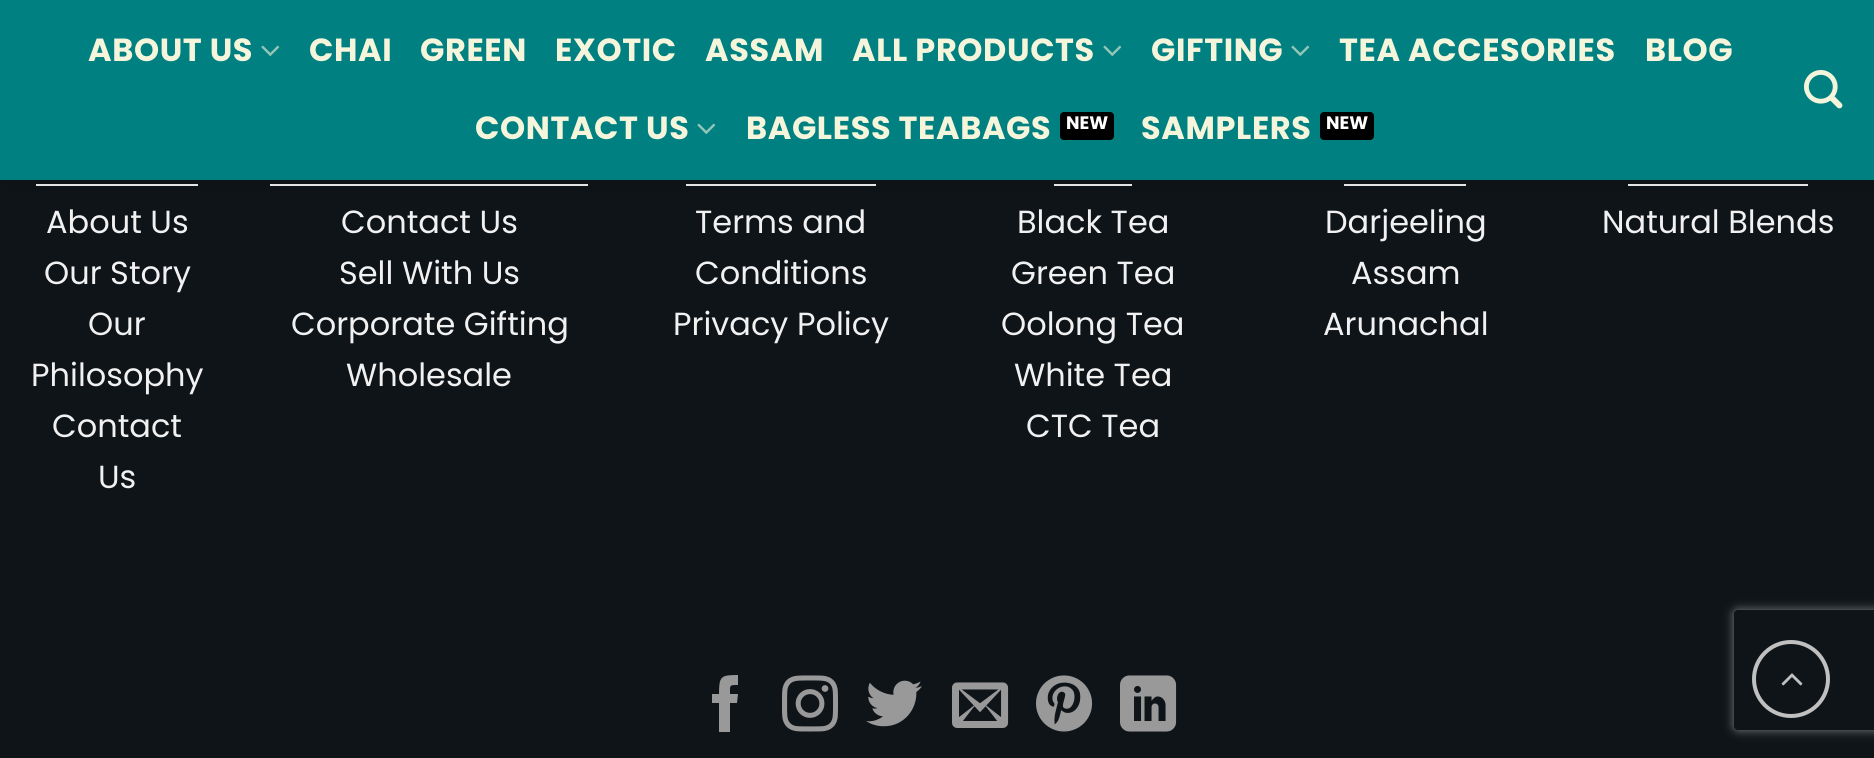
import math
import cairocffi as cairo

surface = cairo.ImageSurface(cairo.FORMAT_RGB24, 1874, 758)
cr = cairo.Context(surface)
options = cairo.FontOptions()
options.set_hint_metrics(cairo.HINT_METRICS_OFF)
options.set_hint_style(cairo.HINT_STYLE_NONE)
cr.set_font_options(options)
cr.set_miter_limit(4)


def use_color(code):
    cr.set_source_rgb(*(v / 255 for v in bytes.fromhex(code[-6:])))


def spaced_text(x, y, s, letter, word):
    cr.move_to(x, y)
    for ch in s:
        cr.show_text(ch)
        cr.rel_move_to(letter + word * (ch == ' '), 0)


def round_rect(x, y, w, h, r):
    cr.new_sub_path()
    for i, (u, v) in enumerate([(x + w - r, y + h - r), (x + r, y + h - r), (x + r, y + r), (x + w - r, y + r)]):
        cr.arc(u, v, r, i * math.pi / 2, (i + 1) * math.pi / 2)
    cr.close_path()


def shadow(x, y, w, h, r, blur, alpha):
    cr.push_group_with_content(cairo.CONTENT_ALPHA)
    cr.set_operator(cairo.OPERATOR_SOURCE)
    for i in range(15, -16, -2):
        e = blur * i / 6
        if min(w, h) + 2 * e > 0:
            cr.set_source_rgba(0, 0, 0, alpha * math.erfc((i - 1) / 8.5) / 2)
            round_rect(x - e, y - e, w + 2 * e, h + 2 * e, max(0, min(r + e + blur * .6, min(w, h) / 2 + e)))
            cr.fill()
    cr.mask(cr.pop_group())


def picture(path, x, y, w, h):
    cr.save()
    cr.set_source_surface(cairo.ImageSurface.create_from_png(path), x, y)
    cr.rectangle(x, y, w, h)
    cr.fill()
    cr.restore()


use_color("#0f1419")
cr.paint()
use_color("#f1f1f1")
cr.rectangle(36, 184, 162, 2)
cr.fill()
cr.rectangle(270, 184, 318, 2)
cr.fill()
cr.rectangle(686, 184, 190, 2)
cr.fill()
cr.rectangle(1054, 184, 78, 2)
cr.fill()
cr.rectangle(1344, 184, 122, 2)
cr.fill()
cr.rectangle(1628, 184, 180, 2)
cr.fill()
use_color("#000000")
shadow(2, 2, 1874, 180, 0, 10, 0.15)
use_color("#008080")
cr.rectangle(0, 0, 1874, 180)
cr.fill()
cr.select_font_face("Poppins", cairo.FONT_SLANT_NORMAL, cairo.FONT_WEIGHT_BOLD)
cr.set_font_size(32)
use_color("#f5f5dc")
spaced_text(88, 61, "ABOUT US", 0.6, 0)
picture("img1.png", 261, 45, 19, 11)
spaced_text(309, 61, "CHAI", 0.6, 0)
spaced_text(420, 61, "GREEN", 0.6, 0)
spaced_text(555, 61, "EXOTIC", 0.6, 0)
spaced_text(705, 61, "ASSAM", 0.6, 0)
spaced_text(852, 61, "ALL PRODUCTS", 0.6, 0)
picture("img1.png", 1103, 45, 19, 11)
spaced_text(1151, 61, "GIFTING", 0.6, 0)
picture("img1.png", 1291, 45, 19, 11)
spaced_text(1339, 61, "TEA ACCESORIES", 0.6, 0)
spaced_text(1645, 61, "BLOG", 0.6, 0)
spaced_text(475, 139, "CONTACT US", 0.6, 0)
picture("img1.png", 697, 123, 19, 11)
spaced_text(746, 139, "BAGLESS TEABAGS", 0.6, 0)
use_color("#000000")
round_rect(1060, 112, 54, 28, 4)
cr.fill()
cr.set_font_size(18)
use_color("#ffffff")
cr.move_to(1066, 129)
cr.show_text("NEW")
cr.set_font_size(32)
use_color("#f5f5dc")
spaced_text(1141, 139, "SAMPLERS", 0.6, 0)
use_color("#000000")
round_rect(1320, 112, 54, 28, 4)
cr.fill()
cr.set_font_size(18)
use_color("#ffffff")
cr.move_to(1326, 129)
cr.show_text("NEW")
picture("img2.png", 1804, 70, 39, 39)
cr.select_font_face("Poppins")
cr.set_font_size(32)
use_color("#f1f1f1")
cr.move_to(46, 233)
cr.show_text("About Us")
cr.move_to(44, 284)
cr.show_text("Our Story")
cr.move_to(88, 335)
cr.show_text("Our")
cr.move_to(31, 386)
cr.show_text("Philosophy")
cr.move_to(52, 437)
cr.show_text("Contact")
cr.move_to(98, 488)
cr.show_text("Us")
cr.move_to(341, 233)
cr.show_text("Contact Us")
cr.move_to(339, 284)
cr.show_text("Sell With Us")
cr.move_to(291, 335)
cr.show_text("Corporate Gifting")
cr.move_to(346, 386)
cr.show_text("Wholesale")
cr.move_to(695, 233)
cr.show_text("Terms and")
cr.move_to(695, 284)
cr.show_text("Conditions")
cr.move_to(673, 335)
cr.show_text("Privacy Policy")
cr.move_to(1017, 233)
cr.show_text("Black Tea")
cr.move_to(1011, 284)
cr.show_text("Green Tea")
cr.move_to(1001, 335)
cr.show_text("Oolong Tea")
cr.move_to(1014, 386)
cr.show_text("White Tea")
cr.move_to(1026, 437)
cr.show_text("CTC Tea")
cr.move_to(1325, 233)
cr.show_text("Darjeeling")
cr.move_to(1351, 284)
cr.show_text("Assam")
cr.move_to(1323, 335)
cr.show_text("Arunachal")
cr.move_to(1602, 233)
cr.show_text("Natural Blends")
use_color("#999999")
cr.new_path()
cr.move_to(730, 732)
cr.line_to(719, 732)
cr.line_to(719, 703)
cr.line_to(712, 703)
cr.line_to(712, 694)
cr.line_to(719, 694)
cr.curve_to(719, 676, 721, 675, 738, 675)
cr.line_to(738, 685)
cr.curve_to(729, 685, 730, 685, 730, 694)
cr.line_to(738, 694)
cr.line_to(737, 703)
cr.line_to(730, 703)
cr.close_path()
cr.fill()
picture("img3.png", 782, 675, 56, 57)
picture("img4.png", 866, 680, 56, 47)
picture("img5.png", 952, 682, 57, 46)
picture("img6.png", 1036, 675, 57, 57)
picture("img7.png", 1120, 675, 57, 57)
cr.save()
cr.set_fill_rule(cairo.FILL_RULE_EVEN_ODD)
cr.new_path()
cr.move_to(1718, 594)
cr.line_to(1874, 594)
cr.line_to(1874, 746)
cr.line_to(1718, 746)
cr.close_path()
cr.move_to(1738, 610)
cr.line_to(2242, 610)
cr.curve_to(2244, 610, 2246, 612, 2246, 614)
cr.line_to(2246, 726)
cr.curve_to(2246, 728, 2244, 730, 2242, 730)
cr.line_to(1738, 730)
cr.curve_to(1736, 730, 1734, 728, 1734, 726)
cr.line_to(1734, 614)
cr.curve_to(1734, 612, 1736, 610, 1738, 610)
cr.close_path()
cr.clip()
use_color("#808080")
shadow(1734, 610, 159, 120, 4, 5, 1)
cr.restore()
cr.arc(1791, 679, 37, 0, 2 * math.pi)
use_color("#c0c0c0")
cr.set_line_width(4)
cr.stroke()
picture("img8.png", 1781, 673, 22, 13)
surface.write_to_png("result.png")
